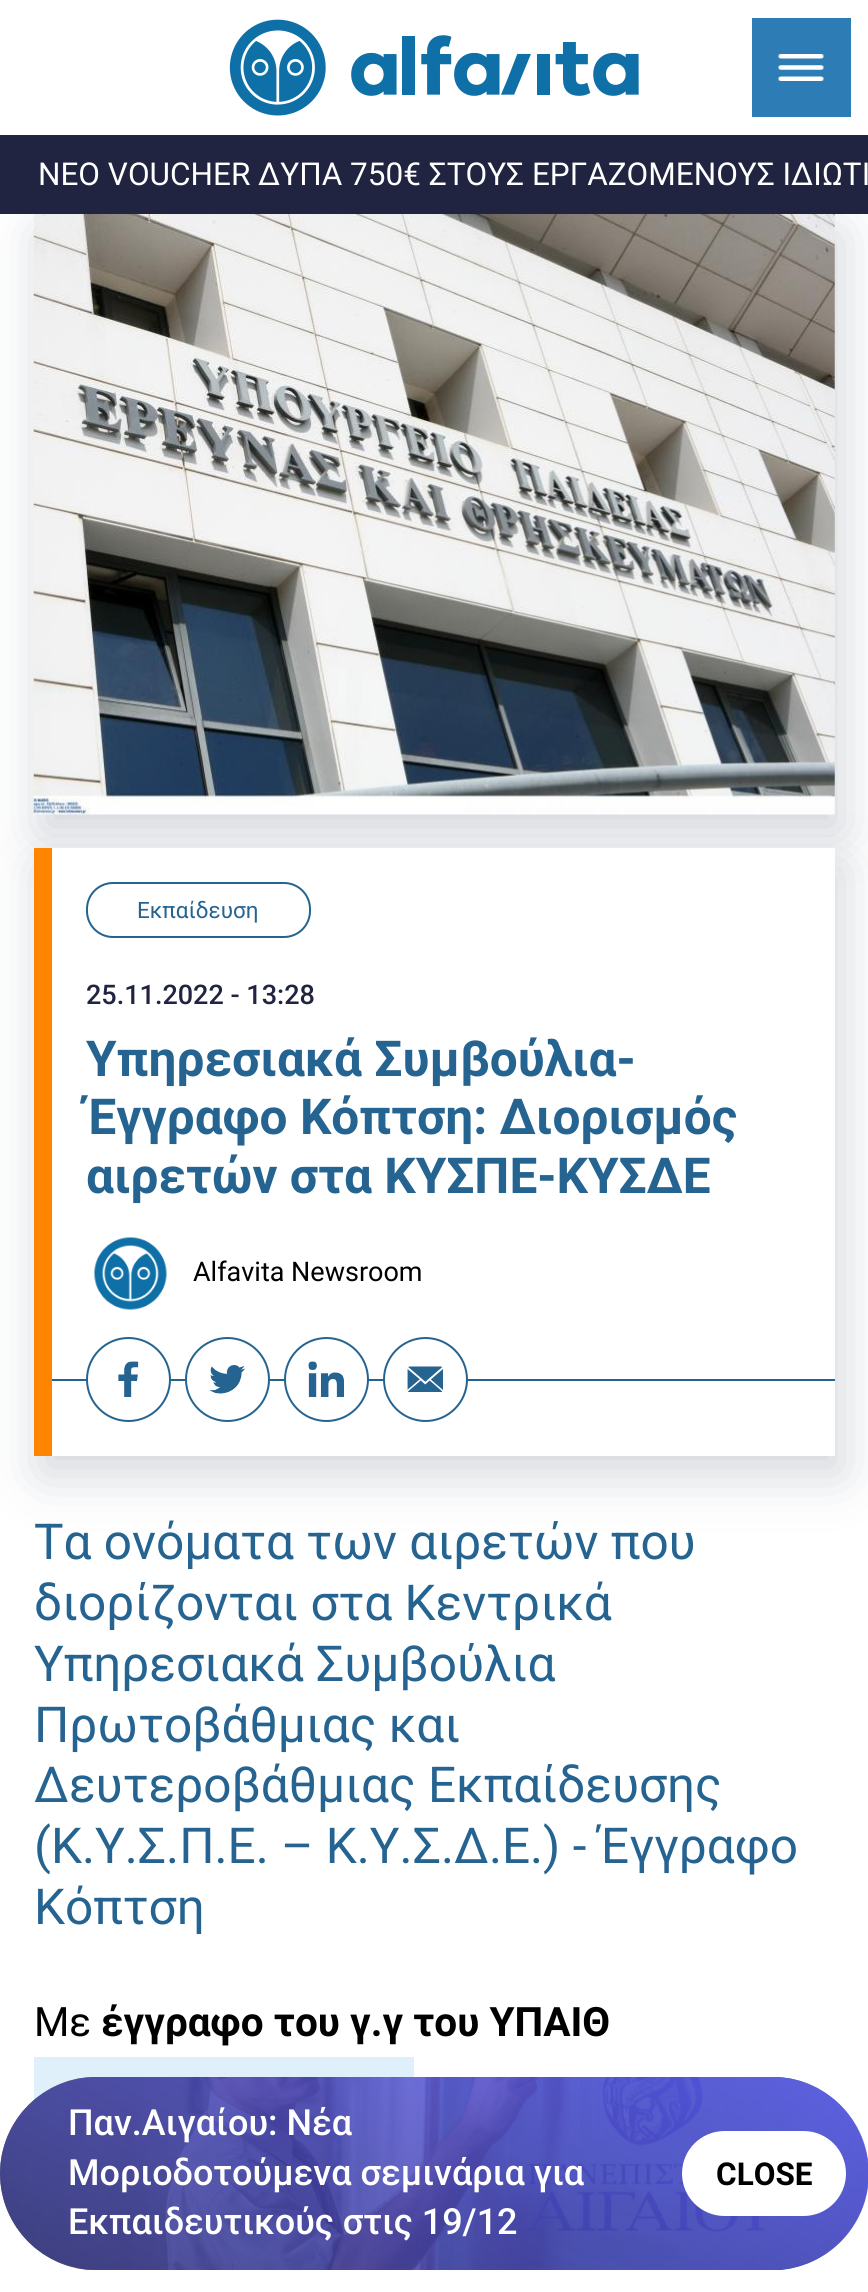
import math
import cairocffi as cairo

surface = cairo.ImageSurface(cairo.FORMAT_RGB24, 868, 2292)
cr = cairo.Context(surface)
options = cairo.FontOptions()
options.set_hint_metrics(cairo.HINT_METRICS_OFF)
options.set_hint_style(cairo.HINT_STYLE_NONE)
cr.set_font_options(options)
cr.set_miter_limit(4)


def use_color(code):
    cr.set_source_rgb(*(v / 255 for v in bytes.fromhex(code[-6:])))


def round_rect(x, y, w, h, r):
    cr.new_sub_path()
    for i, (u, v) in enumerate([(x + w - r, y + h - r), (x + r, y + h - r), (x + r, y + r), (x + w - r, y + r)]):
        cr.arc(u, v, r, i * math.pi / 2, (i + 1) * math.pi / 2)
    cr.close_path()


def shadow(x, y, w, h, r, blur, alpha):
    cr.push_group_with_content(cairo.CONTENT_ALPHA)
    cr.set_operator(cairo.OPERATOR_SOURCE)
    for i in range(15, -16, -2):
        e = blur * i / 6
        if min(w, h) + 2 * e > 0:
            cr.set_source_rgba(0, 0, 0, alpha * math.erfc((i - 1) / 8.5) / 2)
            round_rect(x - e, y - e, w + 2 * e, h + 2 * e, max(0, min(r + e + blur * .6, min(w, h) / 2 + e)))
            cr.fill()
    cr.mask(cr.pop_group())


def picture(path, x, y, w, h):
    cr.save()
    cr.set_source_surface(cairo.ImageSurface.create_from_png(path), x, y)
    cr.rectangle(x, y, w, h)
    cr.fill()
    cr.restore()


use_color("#ffffff")
cr.paint()
picture("img1.png", 229, 19, 410, 97)
use_color("#2e7cb5")
cr.rectangle(752, 18, 99, 99)
cr.fill()
picture("img2.png", 778, 54, 46, 27)
use_color("#273650")
shadow(41, 232, 801, 601, 0, 27, 0.21)
use_color("#202441")
cr.rectangle(0, 135, 868, 79)
cr.fill()
cr.select_font_face("Roboto")
cr.set_font_size(31.5)
use_color("#ffffff")
cr.move_to(38, 185)
cr.show_text("ΝΕΟ VOUCHER ΔΥΠΑ 750€ ΣΤΟΥΣ ΕΡΓΑΖΟΜΕΝΟΥΣ ΙΔΙΩΤΙ")
picture("img3.png", 33, 214, 802, 601)
use_color("#273650")
shadow(41, 866, 801, 608, 0, 27, 0.21)
use_color("#ffffff")
cr.rectangle(52, 848, 783, 608)
cr.fill()
use_color("#ff8400")
cr.rectangle(34, 848, 18, 608)
cr.fill()
round_rect(87, 883, 223, 54, 26)
use_color("#256391")
cr.stroke()
cr.set_font_size(22.5)
cr.move_to(137, 918)
cr.show_text("Εκπαίδευση")
cr.select_font_face("Roboto Medium")
cr.set_font_size(27)
use_color("#202441")
cr.move_to(86, 1004)
cr.show_text("25.11.2022 - 13:28")
cr.select_font_face("Roboto", cairo.FONT_SLANT_NORMAL, cairo.FONT_WEIGHT_BOLD)
cr.set_font_size(49.5)
use_color("#256391")
cr.move_to(86, 1076)
cr.show_text("Υπηρεσιακά Συμβούλια-")
cr.move_to(86, 1134)
cr.show_text("Έγγραφο Κόπτση: Διορισμός")
cr.move_to(86, 1193)
cr.show_text("αιρετών στα ΚΥΣΠΕ-ΚΥΣΔΕ")
picture("img4.png", 94, 1237, 73, 73)
cr.select_font_face("Roboto")
cr.set_font_size(27)
use_color("#000000")
cr.move_to(193, 1281)
cr.show_text("Alfavita Newsroom")
use_color("#256391")
cr.rectangle(52, 1379, 783, 2)
cr.fill()
use_color("#ffffff")
cr.arc(128.5, 1379.5, 41.5, 0, 2 * math.pi)
cr.fill_preserve()
use_color("#256391")
cr.stroke()
picture("img5.png", 118, 1361, 21, 36)
use_color("#ffffff")
cr.arc(227.5, 1379.5, 41.5, 0, 2 * math.pi)
cr.fill_preserve()
use_color("#256391")
cr.stroke()
picture("img6.png", 209, 1365, 36, 29)
use_color("#ffffff")
cr.arc(326.5, 1379.5, 41.5, 0, 2 * math.pi)
cr.fill_preserve()
use_color("#256391")
cr.stroke()
picture("img7.png", 308, 1361, 36, 36)
use_color("#ffffff")
cr.arc(425.5, 1379.5, 41.5, 0, 2 * math.pi)
cr.fill_preserve()
use_color("#256391")
cr.stroke()
picture("img8.png", 407, 1366, 36, 26)
cr.set_font_size(49.5)
cr.move_to(34, 1559)
cr.show_text("Τα ονόματα των αιρετών που")
cr.move_to(34, 1620)
cr.show_text("διορίζονται στα Κεντρικά")
cr.move_to(34, 1681)
cr.show_text("Υπηρεσιακά Συμβούλια")
cr.move_to(34, 1742)
cr.show_text("Πρωτοβάθμιας και")
cr.move_to(34, 1802)
cr.show_text("Δευτεροβάθμιας Εκπαίδευσης")
cr.move_to(34, 1863)
cr.show_text("(Κ.Υ.Σ.Π.Ε. – Κ.Υ.Σ.Δ.Ε.) - Έγγραφο")
cr.move_to(34, 1924)
cr.show_text("Κόπτση")
cr.set_font_size(40.5)
use_color("#000000")
cr.move_to(34, 2036)
cr.show_text("Με")
cr.select_font_face("Roboto", cairo.FONT_SLANT_NORMAL, cairo.FONT_WEIGHT_BOLD)
cr.move_to(101, 2036)
cr.show_text("έγγραφο του γ.γ του ΥΠΑΙΘ")
use_color("#dff0fa")
cr.rectangle(34, 2057, 380, 43)
cr.fill()
picture("img9.png", 0, 2077, 868, 193)
gradient = cairo.LinearGradient(556, 1924, 313, 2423)
gradient.add_color_stop_rgba(0, 0.396, 0.388, 1, 0.83)
gradient.add_color_stop_rgba(1, 0.2, 0.196, 0.502, 0.83)
cr.set_source(gradient)
round_rect(0, 2077, 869, 193, 96.5)
cr.fill()
cr.select_font_face("Roboto Medium")
cr.set_font_size(36)
use_color("#ffffff")
cr.move_to(68, 2135)
cr.show_text("Παν.Αιγαίου: Νέα")
cr.move_to(68, 2185)
cr.show_text("Μοριοδοτούμενα σεμινάρια για")
cr.move_to(68, 2234)
cr.show_text("Εκπαιδευτικούς στις 19/12")
round_rect(682, 2131, 164, 85, 42.5)
cr.fill()
cr.select_font_face("Roboto", cairo.FONT_SLANT_NORMAL, cairo.FONT_WEIGHT_BOLD)
cr.set_font_size(31.5)
use_color("#000000")
cr.move_to(716, 2185)
cr.show_text("CLOSE")
surface.write_to_png("result.png")
